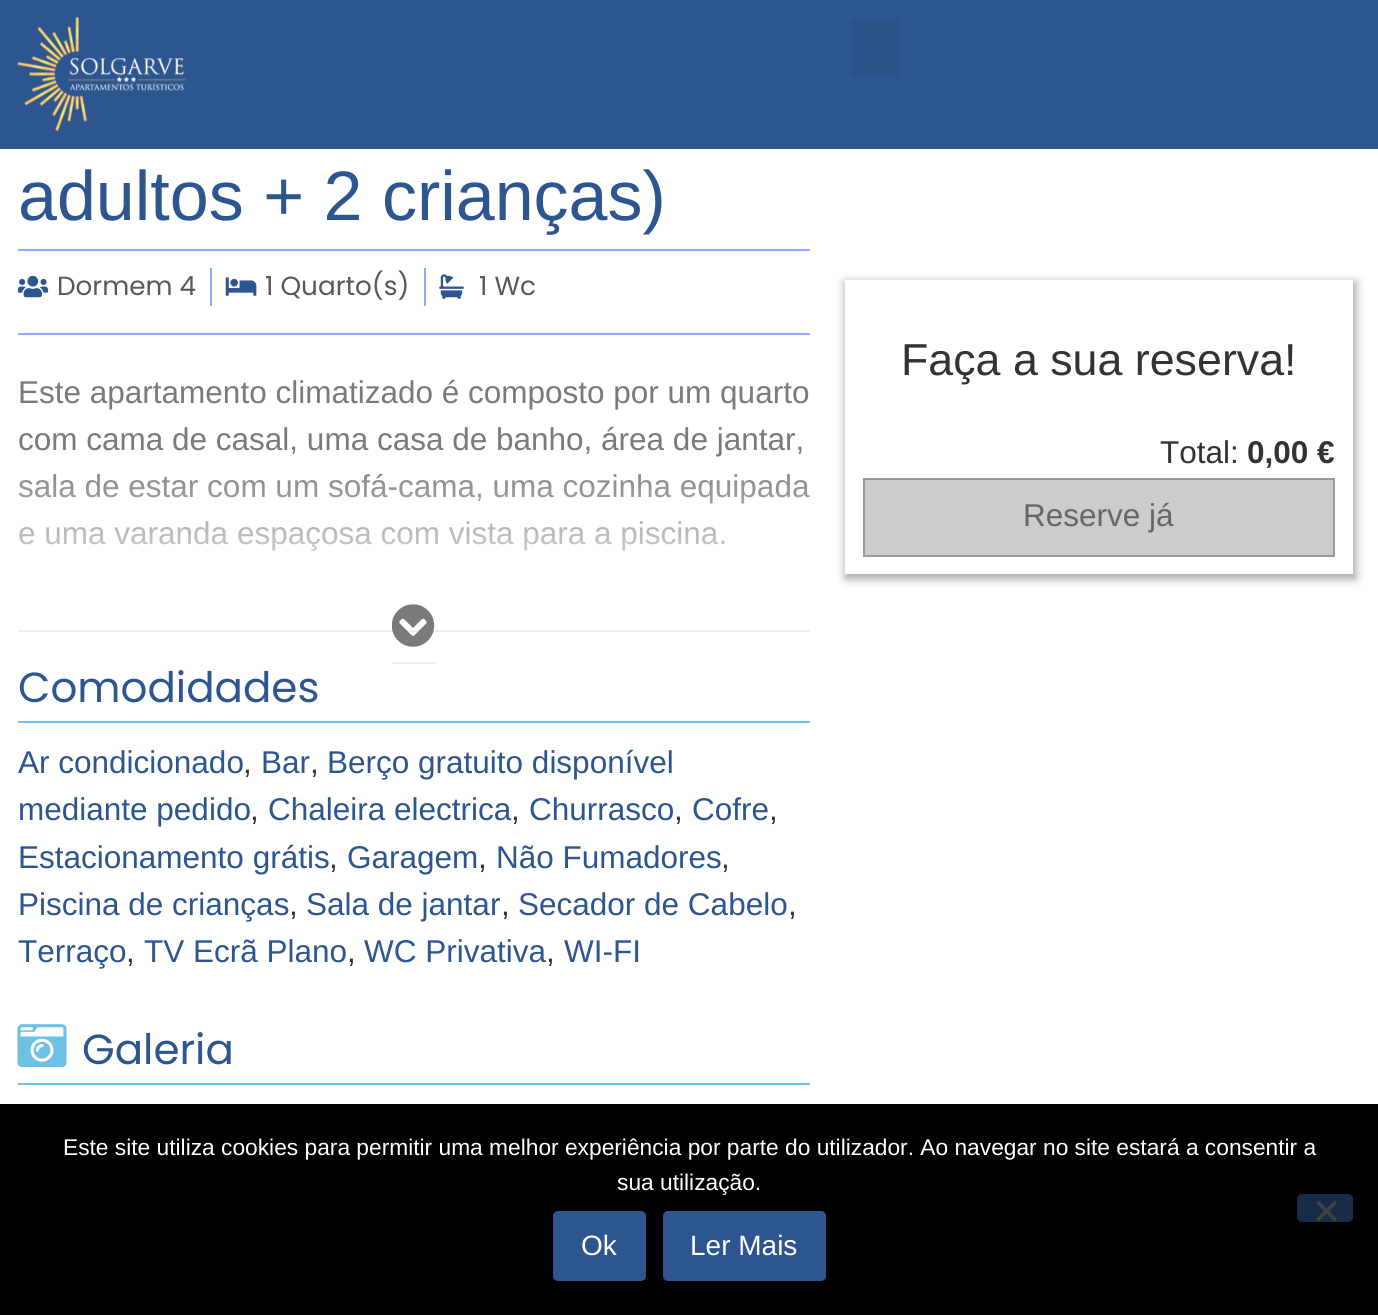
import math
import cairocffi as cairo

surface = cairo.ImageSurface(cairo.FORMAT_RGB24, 1378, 1315)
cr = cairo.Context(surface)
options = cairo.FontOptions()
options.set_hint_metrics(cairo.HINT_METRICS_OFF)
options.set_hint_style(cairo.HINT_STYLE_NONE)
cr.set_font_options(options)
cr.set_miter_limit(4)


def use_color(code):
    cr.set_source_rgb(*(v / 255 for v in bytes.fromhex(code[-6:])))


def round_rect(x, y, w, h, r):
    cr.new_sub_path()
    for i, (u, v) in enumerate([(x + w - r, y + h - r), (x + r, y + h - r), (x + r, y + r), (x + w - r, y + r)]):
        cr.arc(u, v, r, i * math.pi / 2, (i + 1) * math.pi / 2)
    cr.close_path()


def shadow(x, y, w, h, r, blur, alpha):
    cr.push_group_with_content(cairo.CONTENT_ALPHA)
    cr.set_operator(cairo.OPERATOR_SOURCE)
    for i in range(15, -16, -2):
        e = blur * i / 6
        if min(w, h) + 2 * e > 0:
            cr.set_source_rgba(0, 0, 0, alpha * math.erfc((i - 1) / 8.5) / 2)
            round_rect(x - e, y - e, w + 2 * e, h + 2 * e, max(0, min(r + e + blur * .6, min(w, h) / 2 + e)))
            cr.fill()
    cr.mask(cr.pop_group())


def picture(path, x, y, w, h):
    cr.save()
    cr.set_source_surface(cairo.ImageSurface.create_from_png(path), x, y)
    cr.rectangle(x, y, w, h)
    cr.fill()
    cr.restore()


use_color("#ffffff")
cr.paint()
use_color("#2d5590")
cr.rectangle(0, 0, 1378, 149)
cr.fill()
picture("img1.png", 17, 17, 169, 115)
use_color("#2b5189")
round_rect(851, 19, 49, 58, 5)
cr.fill()
use_color("#8cabff")
cr.rectangle(18, 249, 792, 2)
cr.fill()
cr.select_font_face("Liberation Sans")
cr.set_font_size(70)
use_color("#2d5590")
cr.move_to(18, 220)
cr.show_text("adultos + 2 crianças)")
use_color("#8cabff")
cr.rectangle(18, 333, 792, 2)
cr.fill()
picture("img2.png", 18, 275, 31, 23)
cr.select_font_face("Poppins")
cr.set_font_size(26.25)
use_color("#54595f")
cr.move_to(57, 295)
cr.show_text("Dormem 4")
use_color("#8cabff")
cr.rectangle(210, 268, 2, 38)
cr.fill()
picture("img3.png", 225, 277, 32, 19)
use_color("#54595f")
cr.move_to(265, 295)
cr.show_text("1 Quarto(s)")
use_color("#8cabff")
cr.rectangle(424, 268, 2, 38)
cr.fill()
picture("img4.png", 439, 274, 25, 25)
use_color("#54595f")
cr.move_to(479, 295)
cr.show_text("1 Wc")
use_color("#efefef")
cr.rectangle(18, 630, 792, 2)
cr.fill()
cr.select_font_face("Liberation Sans")
cr.set_font_size(31.5)
use_color("#7a7a7a")
cr.move_to(18, 403)
cr.show_text("Este apartamento climatizado é composto por um quarto")
cr.move_to(18, 450)
cr.show_text("com cama de casal, uma casa de banho, área de jantar,")
cr.move_to(18, 497)
cr.show_text("sala de estar com um sofá-cama, uma cozinha equipada")
cr.move_to(18, 544)
cr.show_text("e uma varanda espaçosa com vista para a piscina.")
gradient = cairo.LinearGradient(414, 630, 414, 457)
gradient.add_color_stop_rgba(0.1, 1, 1, 1, 1)
gradient.add_color_stop_rgba(1, 1, 1, 1, 0)
cr.set_source(gradient)
cr.rectangle(18, 473, 791, 78)
cr.fill()
use_color("#efefef")
cr.rectangle(392, 662, 44, 2)
cr.fill()
picture("img5.png", 392, 604, 43, 43)
use_color("#6ec1e4")
cr.rectangle(18, 721, 792, 2)
cr.fill()
cr.select_font_face("Poppins")
cr.set_font_size(42)
use_color("#2d5590")
cr.move_to(18, 702)
cr.show_text("Comodidades")
cr.select_font_face("Liberation Sans")
cr.set_font_size(31.5)
cr.move_to(18, 773)
cr.show_text("Ar condicionado")
use_color("#333333")
cr.move_to(243, 773)
cr.show_text(",")
use_color("#2d5590")
cr.move_to(261, 773)
cr.show_text("Bar")
use_color("#333333")
cr.move_to(310, 773)
cr.show_text(",")
use_color("#2d5590")
cr.move_to(327, 773)
cr.show_text("Berço gratuito disponível")
cr.move_to(18, 820)
cr.show_text("mediante pedido")
use_color("#333333")
cr.move_to(250, 820)
cr.show_text(",")
use_color("#2d5590")
cr.move_to(268, 820)
cr.show_text("Chaleira electrica")
use_color("#333333")
cr.move_to(511, 820)
cr.show_text(",")
use_color("#2d5590")
cr.move_to(529, 820)
cr.show_text("Churrasco")
use_color("#333333")
cr.move_to(674, 820)
cr.show_text(",")
use_color("#2d5590")
cr.move_to(692, 820)
cr.show_text("Cofre")
use_color("#333333")
cr.move_to(769, 820)
cr.show_text(",")
use_color("#2d5590")
cr.move_to(18, 868)
cr.show_text("Estacionamento grátis")
use_color("#333333")
cr.move_to(329, 868)
cr.show_text(",")
use_color("#2d5590")
cr.move_to(347, 868)
cr.show_text("Garagem")
use_color("#333333")
cr.move_to(478, 868)
cr.show_text(",")
use_color("#2d5590")
cr.move_to(496, 868)
cr.show_text("Não Fumadores")
use_color("#333333")
cr.move_to(721, 868)
cr.show_text(",")
use_color("#2d5590")
cr.move_to(18, 915)
cr.show_text("Piscina de crianças")
use_color("#333333")
cr.move_to(289, 915)
cr.show_text(",")
use_color("#2d5590")
cr.move_to(306, 915)
cr.show_text("Sala de jantar")
use_color("#333333")
cr.move_to(501, 915)
cr.show_text(",")
use_color("#2d5590")
cr.move_to(518, 915)
cr.show_text("Secador de Cabelo")
use_color("#333333")
cr.move_to(788, 915)
cr.show_text(",")
use_color("#2d5590")
cr.move_to(18, 962)
cr.show_text("Terraço")
use_color("#333333")
cr.move_to(126, 962)
cr.show_text(",")
use_color("#2d5590")
cr.move_to(144, 962)
cr.show_text("TV Ecrã Plano")
use_color("#333333")
cr.move_to(347, 962)
cr.show_text(",")
use_color("#2d5590")
cr.move_to(364, 962)
cr.show_text("WC Privativa")
use_color("#333333")
cr.move_to(546, 962)
cr.show_text(",")
use_color("#2d5590")
cr.move_to(564, 962)
cr.show_text("WI-FI")
use_color("#6ec1e4")
cr.rectangle(18, 1083, 792, 2)
cr.fill()
picture("img6.png", 17, 1024, 50, 44)
cr.select_font_face("Poppins")
cr.set_font_size(42)
use_color("#2d5590")
cr.move_to(82, 1064)
cr.show_text("Galeria")
use_color("#a7a7a7")
shadow(845, 282, 511, 297, 0, 4.5, 1)
use_color("#ffffff")
cr.rectangle(845, 280, 508, 294)
cr.fill()
cr.select_font_face("Liberation Sans")
cr.set_font_size(44.75)
use_color("#333333")
cr.move_to(901, 375)
cr.show_text("Faça a sua reserva!")
cr.set_font_size(31.5)
cr.move_to(1160, 463)
cr.show_text("Total:")
cr.select_font_face("Liberation Sans", cairo.FONT_SLANT_NORMAL, cairo.FONT_WEIGHT_BOLD)
cr.move_to(1247, 463)
cr.show_text("0,00 €")
use_color("#cccccc")
cr.rectangle(864, 479, 470, 77)
cr.fill_preserve()
use_color("#999999")
cr.stroke()
cr.select_font_face("Liberation Sans")
use_color("#666666")
cr.move_to(1023, 526)
cr.show_text("Reserve já")
use_color("#000000")
cr.rectangle(0, 1104, 1378, 211)
cr.fill()
cr.set_font_size(22.75)
use_color("#ffffff")
cr.move_to(63, 1155)
cr.show_text("Este site utiliza cookies para permitir uma melhor experiência por parte do utilizador. Ao navegar no site estará a consentir a")
cr.move_to(617, 1190)
cr.show_text("sua utilização.")
use_color("#172b48")
round_rect(1297, 1194, 56, 28, 5)
cr.fill()
use_color("#404040")
cr.new_path()
cr.move_to(1334.5, 1200.5)
cr.line_to(1337, 1203)
cr.line_to(1318.5, 1221.5)
cr.line_to(1316, 1219)
cr.close_path()
cr.fill()
cr.new_path()
cr.move_to(1316, 1203)
cr.line_to(1318.5, 1200.5)
cr.line_to(1337, 1219)
cr.line_to(1334.5, 1221.5)
cr.close_path()
cr.fill()
use_color("#2d5590")
round_rect(553, 1211, 93, 70, 5)
cr.fill()
cr.set_font_size(28)
use_color("#ffffff")
cr.move_to(581, 1255)
cr.show_text("Ok")
use_color("#2d5590")
round_rect(663, 1211, 163, 70, 5)
cr.fill()
use_color("#ffffff")
cr.move_to(690, 1255)
cr.show_text("Ler Mais")
surface.write_to_png("result.png")
